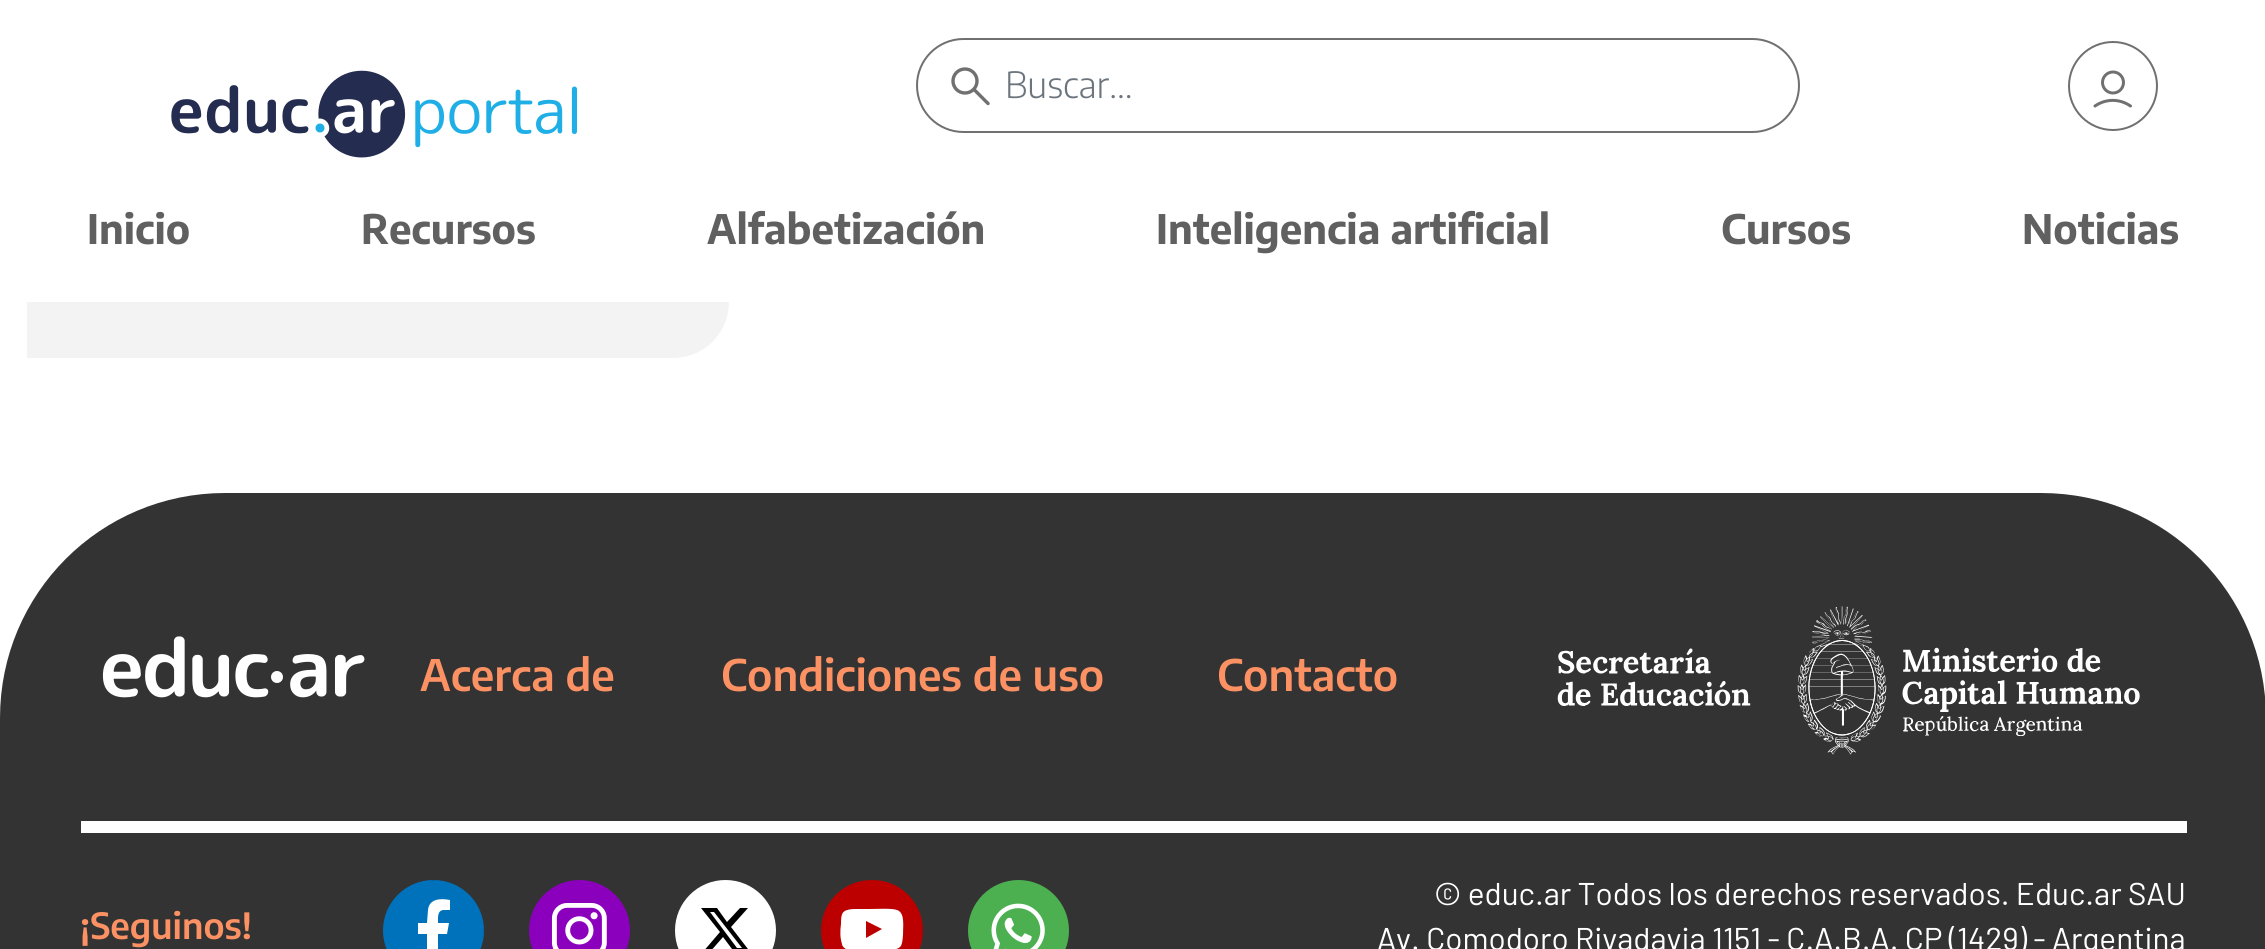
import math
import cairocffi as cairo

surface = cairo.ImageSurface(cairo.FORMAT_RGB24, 2265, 949)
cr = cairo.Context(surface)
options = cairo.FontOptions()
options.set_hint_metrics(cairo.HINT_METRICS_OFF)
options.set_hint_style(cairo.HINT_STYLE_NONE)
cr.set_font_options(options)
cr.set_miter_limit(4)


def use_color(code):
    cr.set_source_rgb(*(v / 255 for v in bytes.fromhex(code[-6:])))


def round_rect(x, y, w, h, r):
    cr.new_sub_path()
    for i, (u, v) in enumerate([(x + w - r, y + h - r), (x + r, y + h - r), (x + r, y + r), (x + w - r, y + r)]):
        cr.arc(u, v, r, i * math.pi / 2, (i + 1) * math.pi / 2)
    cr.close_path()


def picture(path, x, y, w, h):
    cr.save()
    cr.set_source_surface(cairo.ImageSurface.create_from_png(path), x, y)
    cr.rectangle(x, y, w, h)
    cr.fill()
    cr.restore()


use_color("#ffffff")
cr.paint()
use_color("#f3f3f3")
cr.new_path()
cr.move_to(27, -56)
cr.line_to(673, -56)
cr.curve_to(704, -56, 729, -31, 729, 0)
cr.line_to(729, 302)
cr.curve_to(729, 333, 704, 358, 673, 358)
cr.line_to(27, 358)
cr.close_path()
cr.fill()
use_color("#ffffff")
cr.rectangle(27, 0, 702, 302)
cr.fill()
picture("img1.png", 171, 70, 406, 88)
round_rect(917, 39, 882, 93, 46.5)
use_color("#707070")
cr.stroke()
cr.arc(965, 81, 12, 0, 2 * math.pi)
cr.set_line_width(3.4)
cr.stroke()
cr.new_path()
cr.move_to(988, 103.5)
cr.line_to(974, 89.5)
cr.set_line_cap(cairo.LINE_CAP_ROUND)
cr.set_line_join(cairo.LINE_JOIN_ROUND)
cr.stroke()
cr.select_font_face("Encode Sans Condensed Light")
cr.set_font_size(36)
use_color("#6c757d")
cr.move_to(1005, 98)
cr.show_text("Buscar...")
cr.new_path()
cr.arc(2113, 86, 44, 0, 2 * math.pi)
use_color("#707070")
cr.set_line_width(2)
cr.set_line_cap(cairo.LINE_CAP_BUTT)
cr.set_line_join(cairo.LINE_JOIN_MITER)
cr.stroke()
cr.arc(2113, 82.5, 10.5, 0, 2 * math.pi)
cr.set_line_width(3)
cr.stroke()
cr.new_path()
cr.move_to(2095, 106)
cr.curve_to(2106, 98.5, 2119.5, 98.5, 2130.5, 106)
cr.set_line_cap(cairo.LINE_CAP_ROUND)
cr.set_line_join(cairo.LINE_JOIN_ROUND)
cr.stroke()
cr.select_font_face("Encode Sans Condensed", cairo.FONT_SLANT_NORMAL, cairo.FONT_WEIGHT_BOLD)
cr.set_font_size(40.5)
use_color("#606060")
cr.move_to(87, 244)
cr.show_text("Inicio")
cr.move_to(361, 244)
cr.show_text("Recursos")
cr.move_to(707, 244)
cr.show_text("Alfabetización")
cr.move_to(1156, 244)
cr.show_text("Inteligencia artificial")
cr.move_to(1721, 244)
cr.show_text("Cursos")
cr.move_to(2022, 244)
cr.show_text("Noticias")
use_color("#333333")
cr.new_path()
cr.move_to(225, 493)
cr.line_to(2041, 493)
cr.curve_to(2165.5, 493, 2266, 593.5, 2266, 718)
cr.line_to(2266, 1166)
cr.line_to(0, 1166)
cr.line_to(0, 718)
cr.curve_to(0, 593.5, 100.5, 493, 225, 493)
cr.close_path()
cr.fill()
picture("img2.png", 102, 636, 263, 62)
cr.select_font_face("Encode Sans Condensed SemiBold")
cr.set_font_size(43.25)
use_color("#fc9163")
cr.move_to(420, 691)
cr.show_text("Acerca de")
cr.move_to(721, 691)
cr.show_text("Condiciones de uso")
cr.move_to(1217, 691)
cr.show_text("Contacto")
picture("img3.png", 1557, 606, 583, 149)
use_color("#ffffff")
cr.rectangle(81, 821, 2106, 12)
cr.fill()
cr.set_font_size(36)
use_color("#fc9163")
cr.move_to(80, 939)
cr.show_text("¡Seguinos!")
use_color("#0072bc")
cr.new_path()
cr.arc(433.5, 930.5, 50.5, 0, 2 * math.pi)
cr.fill()
cr.save()
round_rect(383, 880, 101, 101, 50.5)
cr.clip()
cr.new_path()
cr.move_to(382.5, 880)
cr.line_to(484, 880)
cr.line_to(484, 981)
cr.line_to(382.5, 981)
cr.close_path()
use_color("#000000")
cr.set_line_width(0.2)
cr.set_line_cap(cairo.LINE_CAP_BUTT)
cr.set_line_join(cairo.LINE_JOIN_MITER)
cr.stroke()
cr.restore()
use_color("#ffffff")
cr.new_path()
cr.move_to(444, 910)
cr.line_to(450, 910)
cr.line_to(450, 900)
cr.curve_to(440, 898, 429, 899, 428, 910)
cr.line_to(427, 923)
cr.line_to(418, 923)
cr.line_to(418, 934)
cr.line_to(427, 934)
cr.line_to(427, 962)
cr.line_to(438, 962)
cr.line_to(438, 934)
cr.line_to(447, 934)
cr.line_to(449, 923)
cr.line_to(438, 923)
cr.curve_to(438, 918, 437, 910, 444, 910)
cr.close_path()
cr.fill()
picture("img4.png", 529, 880, 101, 69)
cr.arc(725.5, 930.5, 50.5, 0, 2 * math.pi)
cr.fill()
use_color("#000000")
cr.new_path()
cr.move_to(740, 908)
cr.line_to(748, 908)
cr.line_to(731, 927)
cr.line_to(751, 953)
cr.line_to(735, 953)
cr.line_to(723, 937)
cr.line_to(709, 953)
cr.line_to(702, 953)
cr.line_to(720, 932)
cr.line_to(701, 908)
cr.line_to(717, 908)
cr.line_to(727, 922)
cr.close_path()
cr.move_to(737, 948)
cr.line_to(742, 948)
cr.line_to(714, 912)
cr.line_to(710, 912)
cr.close_path()
cr.fill()
use_color("#bc0000")
round_rect(821, 880, 102, 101, 50.5)
cr.fill()
cr.save()
round_rect(821, 880, 102, 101, 50.5)
cr.clip()
cr.new_path()
cr.move_to(821, 880)
cr.line_to(922.5, 880)
cr.line_to(922.5, 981)
cr.line_to(821, 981)
cr.close_path()
use_color("#000000")
cr.set_line_width(0.1)
cr.set_line_cap(cairo.LINE_CAP_BUTT)
cr.set_line_join(cairo.LINE_JOIN_MITER)
cr.stroke()
cr.restore()
use_color("#ffffff")
cr.new_path()
cr.move_to(902, 915)
cr.curve_to(901, 913, 900, 911, 897, 910)
cr.curve_to(892, 908, 876, 909, 869, 909)
cr.line_to(853, 909)
cr.curve_to(842, 910, 841, 913, 841, 924)
cr.curve_to(840, 931, 840, 938, 842, 944)
cr.curve_to(842, 946, 844, 948, 846, 949)
cr.curve_to(852, 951, 866, 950, 873, 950)
cr.line_to(890, 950)
cr.curve_to(902, 949, 902, 946, 903, 935)
cr.curve_to(903, 929, 904, 921, 902, 915)
cr.close_path()
cr.move_to(866, 938)
cr.line_to(866, 921)
cr.line_to(882, 929)
cr.close_path()
cr.fill()
picture("img5.png", 968, 880, 101, 69)
cr.select_font_face("Barlow")
cr.set_font_size(31.5)
cr.move_to(1434, 905)
cr.show_text("© educ.ar Todos los derechos reservados. Educ.ar SAU")
cr.move_to(1377, 950)
cr.show_text("Av. Comodoro Rivadavia 1151 - C.A.B.A. CP (1429) - Argentina")
surface.write_to_png("result.png")
